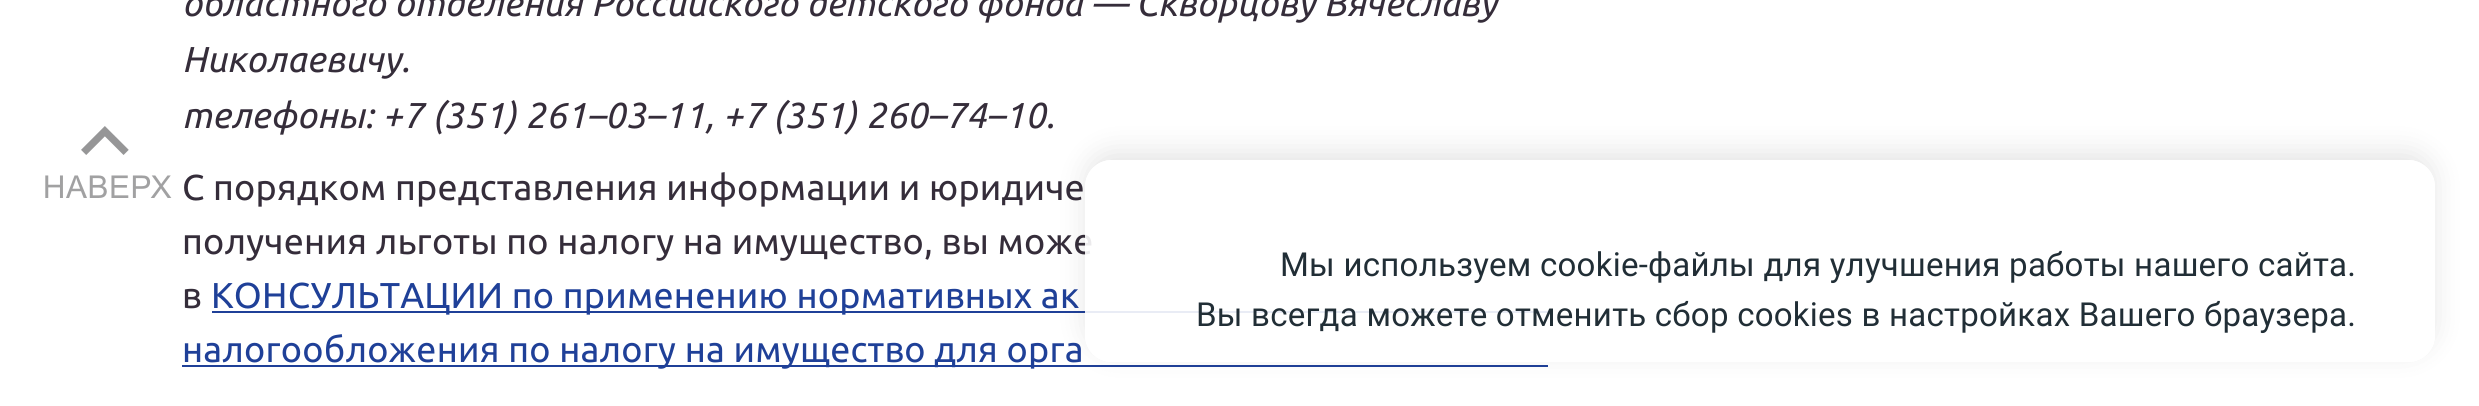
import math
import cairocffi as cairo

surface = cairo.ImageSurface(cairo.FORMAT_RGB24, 2479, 406)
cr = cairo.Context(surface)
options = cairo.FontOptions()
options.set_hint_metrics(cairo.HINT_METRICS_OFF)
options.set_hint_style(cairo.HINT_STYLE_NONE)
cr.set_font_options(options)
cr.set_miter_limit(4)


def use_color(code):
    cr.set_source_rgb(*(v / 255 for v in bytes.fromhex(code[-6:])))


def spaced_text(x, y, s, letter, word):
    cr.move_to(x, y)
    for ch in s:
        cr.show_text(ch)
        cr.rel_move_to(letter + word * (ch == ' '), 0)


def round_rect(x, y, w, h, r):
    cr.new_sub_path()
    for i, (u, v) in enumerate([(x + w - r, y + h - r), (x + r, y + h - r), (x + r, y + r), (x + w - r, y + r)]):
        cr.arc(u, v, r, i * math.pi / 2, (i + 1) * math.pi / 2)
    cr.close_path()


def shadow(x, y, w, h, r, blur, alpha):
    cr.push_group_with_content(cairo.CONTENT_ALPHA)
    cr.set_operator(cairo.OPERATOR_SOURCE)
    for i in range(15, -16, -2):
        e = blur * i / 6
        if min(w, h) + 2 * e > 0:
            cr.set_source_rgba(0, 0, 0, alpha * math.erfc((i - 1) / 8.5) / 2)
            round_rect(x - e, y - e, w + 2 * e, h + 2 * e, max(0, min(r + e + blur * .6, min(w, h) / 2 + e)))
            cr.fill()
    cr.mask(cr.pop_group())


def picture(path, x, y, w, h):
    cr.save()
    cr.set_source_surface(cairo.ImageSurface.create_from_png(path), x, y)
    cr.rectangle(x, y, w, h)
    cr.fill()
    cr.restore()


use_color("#ffffff")
cr.paint()
picture("img1.png", 45, 126, 127, 72)
cr.select_font_face("Ubuntu", cairo.FONT_SLANT_ITALIC)
cr.set_font_size(36)
use_color("#352d3a")
spaced_text(182, 16, "областного отделения Российского детского фонда — Скворцову Вячеславу", 0.23, 0)
spaced_text(182, 72, "Николаевичу.", 0.23, 0)
spaced_text(182, 128, "телефоны: +7 (351) 261–03–11, +7 (351) 260–74–10.", 0.23, 0)
cr.select_font_face("Ubuntu")
spaced_text(182, 200, "С порядком представления информации и юридиче", 0.23, 0)
spaced_text(182, 254, "получения льготы по налогу на имущество, вы може", 0.23, 0)
spaced_text(182, 308, "в", 0.23, 0)
use_color("#1f4098")
cr.rectangle(212, 311, 1336, 2)
cr.fill()
spaced_text(211, 308, "КОНСУЛЬТАЦИИ по применению нормативных ак", 0.23, 0)
cr.rectangle(182, 365, 1366, 2)
cr.fill()
spaced_text(182, 362, "налогообложения по налогу на имущество для орга", 0.23, 0)
cr.save()
cr.set_fill_rule(cairo.FILL_RULE_EVEN_ODD)
cr.new_path()
cr.move_to(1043, 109)
cr.line_to(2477, 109)
cr.line_to(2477, 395)
cr.line_to(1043, 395)
cr.close_path()
cr.move_to(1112, 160)
cr.line_to(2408, 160)
cr.curve_to(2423, 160, 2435, 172, 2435, 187)
cr.line_to(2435, 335)
cr.curve_to(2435, 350, 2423, 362, 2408, 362)
cr.line_to(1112, 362)
cr.curve_to(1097, 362, 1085, 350, 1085, 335)
cr.line_to(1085, 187)
cr.curve_to(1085, 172, 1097, 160, 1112, 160)
cr.close_path()
cr.clip()
use_color("#000000")
shadow(1085, 151, 1350, 202, 27, 13.5, 0.1)
cr.restore()
cr.set_source_rgba(1, 1, 1, 0.9)
round_rect(1085, 160, 1350, 202, 27)
cr.fill()
cr.select_font_face("Roboto")
cr.set_font_size(33.75)
use_color("#212e36")
spaced_text(1280, 276, "Мы используем cookie-файлы для улучшения работы нашего сайта.", 0.23, 0)
spaced_text(1196, 326, "Вы всегда можете отменить сбор cookies в настройках Вашего браузера.", 0.23, 0)
surface.write_to_png("result.png")
